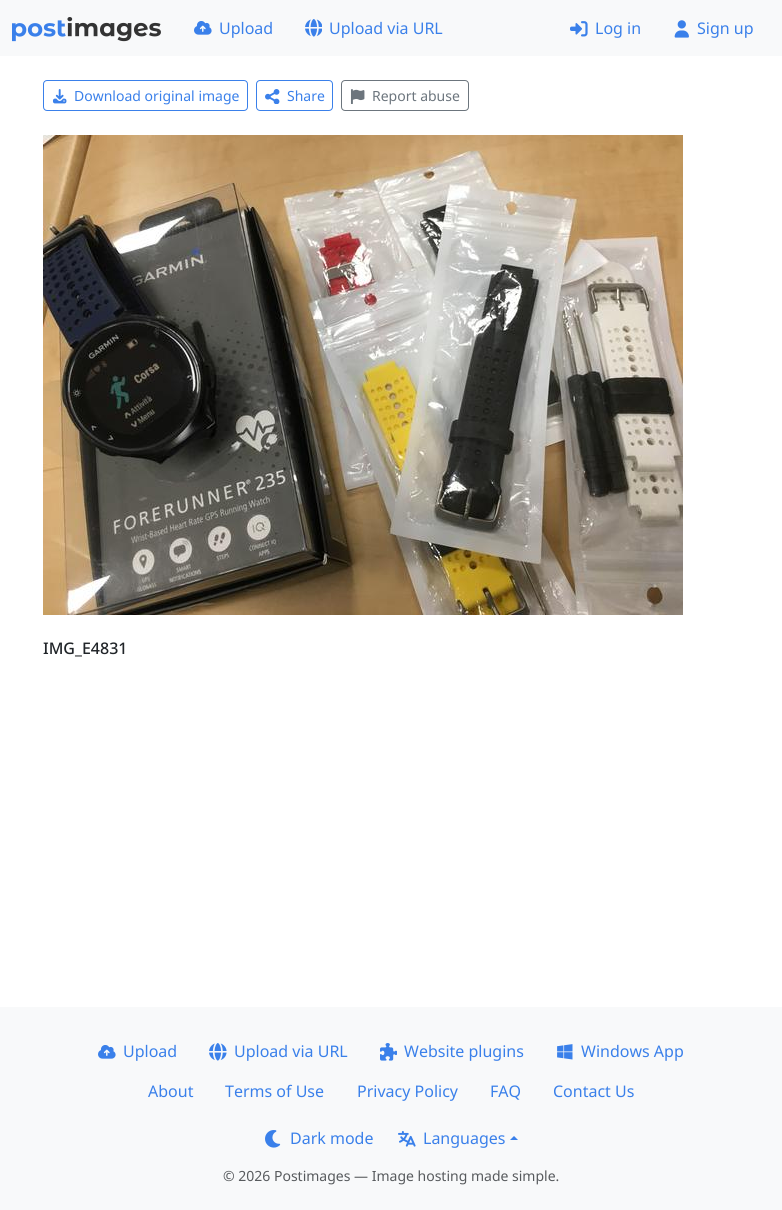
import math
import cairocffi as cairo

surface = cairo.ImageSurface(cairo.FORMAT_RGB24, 782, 1210)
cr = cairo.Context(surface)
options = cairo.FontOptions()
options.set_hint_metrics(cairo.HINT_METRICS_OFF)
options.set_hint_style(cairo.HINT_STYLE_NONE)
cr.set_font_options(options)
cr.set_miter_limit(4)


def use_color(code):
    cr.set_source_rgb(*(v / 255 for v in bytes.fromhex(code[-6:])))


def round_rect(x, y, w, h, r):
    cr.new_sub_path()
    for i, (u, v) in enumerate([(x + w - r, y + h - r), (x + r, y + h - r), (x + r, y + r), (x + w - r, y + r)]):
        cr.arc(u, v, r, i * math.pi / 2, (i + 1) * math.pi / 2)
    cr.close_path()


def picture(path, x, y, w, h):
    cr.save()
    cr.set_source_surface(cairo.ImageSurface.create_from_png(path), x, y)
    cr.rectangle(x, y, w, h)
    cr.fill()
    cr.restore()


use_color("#ffffff")
cr.paint()
use_color("#f8f9fa")
cr.rectangle(0, 0, 782, 56)
cr.fill()
picture("img1.png", 12, 17, 149, 25)
picture("img2.png", 194, 21, 18, 14)
cr.select_font_face("Noto Sans")
cr.set_font_size(16)
use_color("#3a80ea")
cr.move_to(219, 34)
cr.show_text("Upload")
picture("img3.png", 305, 19, 17, 18)
cr.move_to(329, 34)
cr.show_text("Upload via URL")
picture("img4.png", 570, 21, 18, 16)
cr.move_to(595, 34)
cr.show_text("Log in")
picture("img5.png", 674, 20, 15, 18)
cr.move_to(697, 34)
cr.show_text("Sign up")
round_rect(43.5, 80.5, 204, 30, 3.5)
cr.set_line_width(1)
cr.stroke()
picture("img6.png", 52, 89, 15, 15)
cr.set_font_size(14)
cr.move_to(74, 101)
cr.show_text("Download original image")
round_rect(256.5, 80.5, 76, 30, 3.5)
cr.stroke()
picture("img7.png", 265, 89, 15, 15)
cr.move_to(287, 101)
cr.show_text("Share")
round_rect(341.5, 80.5, 127, 30, 3.5)
use_color("#6c757d")
cr.stroke()
picture("img8.png", 350, 89, 15, 15)
cr.move_to(372, 101)
cr.show_text("Report abuse")
picture("img9.png", 43, 135, 640, 480)
cr.select_font_face("Noto Sans Medium")
cr.set_font_size(16)
use_color("#212529")
cr.move_to(43, 654)
cr.show_text("IMG_E4831")
use_color("#f8f9fa")
cr.rectangle(0, 1007, 782, 203)
cr.fill()
picture("img2.png", 98, 1045, 18, 14)
cr.select_font_face("Noto Sans")
use_color("#3a80ea")
cr.move_to(123, 1057)
cr.show_text("Upload")
picture("img10.png", 209, 1043, 18, 18)
cr.move_to(234, 1057)
cr.show_text("Upload via URL")
picture("img11.png", 380, 1043, 17, 18)
cr.move_to(404, 1057)
cr.show_text("Website plugins")
picture("img12.png", 557, 1044, 16, 16)
cr.move_to(581, 1057)
cr.show_text("Windows App")
cr.move_to(148, 1097)
cr.show_text("About")
cr.move_to(225, 1097)
cr.show_text("Terms of Use")
cr.move_to(357, 1097)
cr.show_text("Privacy Policy")
cr.move_to(490, 1097)
cr.show_text("FAQ")
cr.move_to(553, 1097)
cr.show_text("Contact Us")
picture("img13.png", 265, 1130, 16, 18)
cr.move_to(290, 1144)
cr.show_text("Dark mode")
picture("img14.png", 398, 1131, 18, 16)
cr.move_to(423, 1144)
cr.show_text("Languages")
cr.new_path()
cr.move_to(518, 1140)
cr.line_to(510, 1140)
cr.line_to(514, 1136)
cr.close_path()
cr.fill()
cr.set_font_size(14)
use_color("#575a5d")
cr.move_to(223, 1181)
cr.show_text("© 2026 Postimages — Image hosting made simple.")
surface.write_to_png("result.png")
